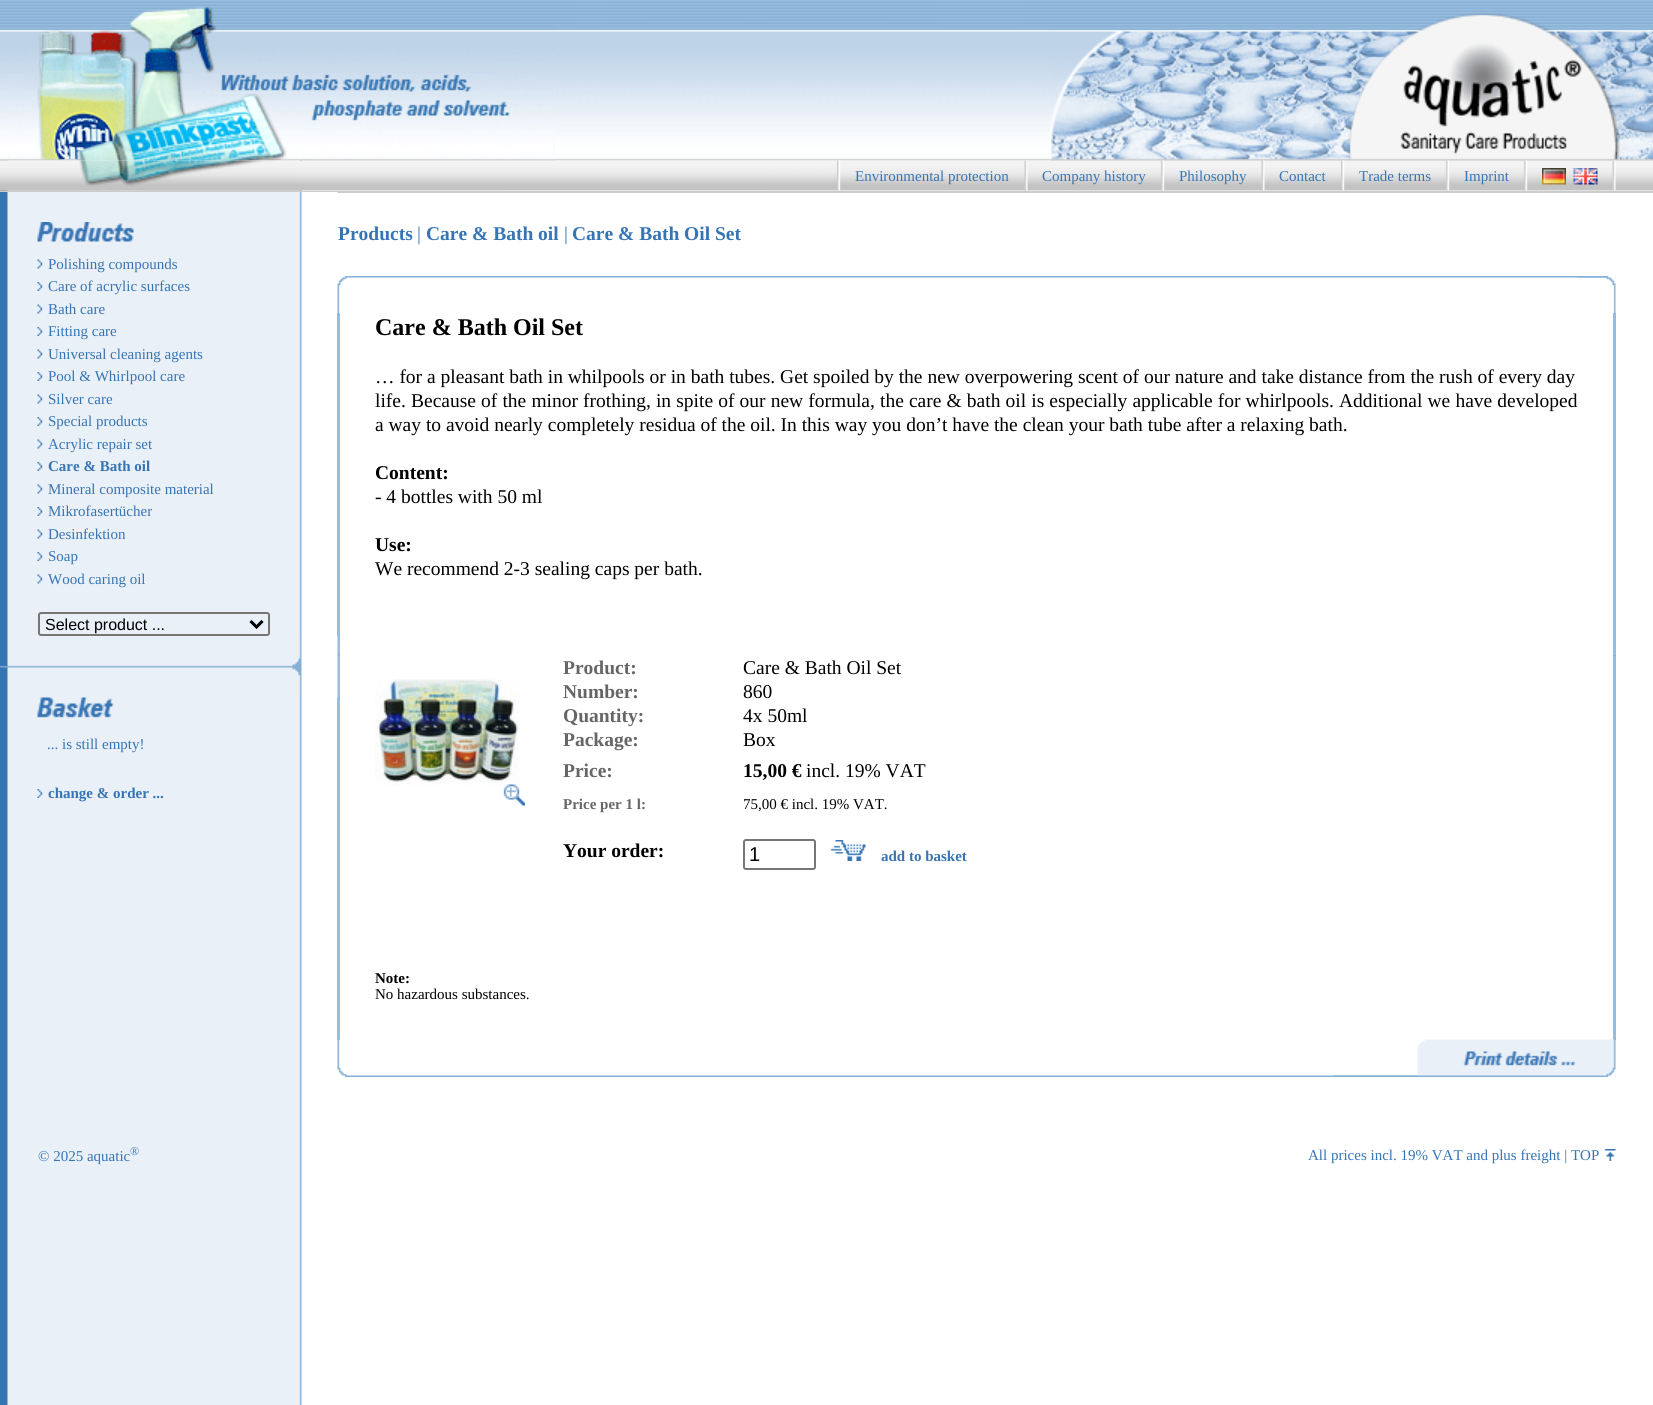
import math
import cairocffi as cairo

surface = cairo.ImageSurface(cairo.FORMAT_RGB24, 1653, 1405)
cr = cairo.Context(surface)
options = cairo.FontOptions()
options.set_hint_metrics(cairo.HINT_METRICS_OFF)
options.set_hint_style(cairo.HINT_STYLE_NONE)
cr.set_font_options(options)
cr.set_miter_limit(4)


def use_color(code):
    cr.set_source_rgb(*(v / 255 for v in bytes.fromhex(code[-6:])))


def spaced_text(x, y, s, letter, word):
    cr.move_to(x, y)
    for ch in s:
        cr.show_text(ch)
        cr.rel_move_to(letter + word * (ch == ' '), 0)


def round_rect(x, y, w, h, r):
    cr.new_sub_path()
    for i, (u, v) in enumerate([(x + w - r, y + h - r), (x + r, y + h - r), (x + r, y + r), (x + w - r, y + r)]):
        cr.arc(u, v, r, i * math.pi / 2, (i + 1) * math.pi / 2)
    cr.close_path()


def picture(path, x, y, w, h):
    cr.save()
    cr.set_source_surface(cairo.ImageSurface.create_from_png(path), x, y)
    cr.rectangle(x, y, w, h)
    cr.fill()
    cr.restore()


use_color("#ffffff")
cr.paint()
use_color("#98bcdc")
cr.rectangle(1613, 655, 3, 385)
cr.fill()
picture("img1.png", 0, 160, 302, 1245)
picture("img3.png", 555, 0, 1098, 161)
picture("img5.png", 0, 160, 1653, 31)
picture("img2.png", 0, 0, 555, 161)
picture("img4.png", 1050, 13, 603, 148)
picture("img6.png", 0, 160, 300, 31)
picture("img7.png", 836, 160, 5, 31)
cr.select_font_face("Liberation Serif")
cr.set_font_size(15)
use_color("#3674b3")
cr.move_to(855, 181)
cr.show_text("Environmental protection")
picture("img8.png", 1024, 160, 4, 31)
cr.move_to(1042, 181)
cr.show_text("Company history")
picture("img9.png", 1160, 160, 5, 31)
cr.move_to(1179, 181)
cr.show_text("Philosophy")
picture("img10.png", 1261, 160, 4, 31)
cr.move_to(1279, 181)
cr.show_text("Contact")
picture("img9.png", 1340, 160, 5, 31)
cr.move_to(1359, 181)
cr.show_text("Trade terms")
picture("img11.png", 1445, 160, 5, 31)
cr.move_to(1464, 181)
cr.show_text("Imprint")
picture("img12.png", 1523, 160, 5, 31)
picture("img13.png", 1542, 168, 24, 17)
picture("img14.png", 1573, 168, 25, 17)
picture("img10.png", 1612, 160, 4, 31)
use_color("#cccccc")
cr.rectangle(0, 191, 1653, 2)
cr.fill()
picture("img15.png", 0, 192, 338, 1)
picture("img16.png", 37, 222, 97, 20)
picture("img17.png", 37, 259, 6, 10)
use_color("#3674b3")
cr.move_to(48, 269)
cr.show_text("Polishing compounds")
picture("img18.png", 37, 282, 6, 9)
cr.move_to(48, 291)
cr.show_text("Care of acrylic surfaces")
picture("img17.png", 37, 304, 6, 10)
cr.move_to(48, 314)
cr.show_text("Bath care")
picture("img18.png", 37, 327, 6, 9)
cr.move_to(48, 336)
cr.show_text("Fitting care")
picture("img17.png", 37, 349, 6, 10)
cr.move_to(48, 359)
cr.show_text("Universal cleaning agents")
picture("img18.png", 37, 372, 6, 9)
cr.move_to(48, 381)
cr.show_text("Pool & Whirlpool care")
picture("img17.png", 37, 394, 6, 10)
cr.move_to(48, 404)
cr.show_text("Silver care")
picture("img18.png", 37, 417, 6, 9)
cr.move_to(48, 426)
cr.show_text("Special products")
picture("img17.png", 37, 439, 6, 10)
cr.move_to(48, 449)
cr.show_text("Acrylic repair set")
picture("img18.png", 37, 462, 6, 9)
cr.select_font_face("Liberation Serif", cairo.FONT_SLANT_NORMAL, cairo.FONT_WEIGHT_BOLD)
cr.move_to(48, 471)
cr.show_text("Care & Bath oil")
picture("img17.png", 37, 484, 6, 10)
cr.select_font_face("Liberation Serif")
cr.move_to(48, 494)
cr.show_text("Mineral composite material")
picture("img18.png", 37, 507, 6, 9)
cr.move_to(48, 516)
cr.show_text("Mikrofasertücher")
picture("img17.png", 37, 529, 6, 10)
cr.move_to(48, 539)
cr.show_text("Desinfektion")
picture("img18.png", 37, 552, 6, 9)
cr.move_to(48, 561)
cr.show_text("Soap")
picture("img17.png", 37, 574, 6, 10)
cr.move_to(48, 584)
cr.show_text("Wood caring oil")
round_rect(39, 613, 230, 22, 2)
use_color("#767676")
cr.stroke()
cr.new_path()
cr.move_to(250.5, 621)
cr.line_to(256.5, 627)
cr.line_to(262.5, 621)
use_color("#000000")
cr.set_line_width(3)
cr.stroke()
cr.select_font_face("Liberation Sans")
cr.set_font_size(16)
cr.move_to(45, 630)
cr.show_text("Select product ...")
picture("img21.png", 337, 276, 1279, 38)
cr.set_source_rgba(0.518, 0.69, 0.839, 0.83)
cr.rectangle(337, 313, 3, 343)
cr.fill()
cr.rectangle(337, 655, 3, 385)
cr.fill()
picture("img19.png", 0, 636, 338, 62)
picture("img20.png", 37, 697, 77, 21)
cr.select_font_face("Liberation Serif")
cr.set_font_size(15)
use_color("#3674b3")
cr.move_to(47, 749)
cr.show_text("... is still empty!")
picture("img18.png", 37, 789, 6, 9)
cr.select_font_face("Liberation Serif", cairo.FONT_SLANT_NORMAL, cairo.FONT_WEIGHT_BOLD)
cr.move_to(48, 798)
cr.show_text("change & order ...")
cr.set_font_size(19.5)
cr.move_to(338, 240)
cr.show_text("Products")
cr.select_font_face("Liberation Serif")
cr.move_to(417, 240)
cr.show_text("|")
cr.select_font_face("Liberation Serif", cairo.FONT_SLANT_NORMAL, cairo.FONT_WEIGHT_BOLD)
cr.move_to(426, 240)
cr.show_text("Care & Bath oil")
cr.select_font_face("Liberation Serif")
cr.move_to(564, 240)
cr.show_text("|")
cr.select_font_face("Liberation Serif", cairo.FONT_SLANT_NORMAL, cairo.FONT_WEIGHT_BOLD)
cr.move_to(572, 240)
cr.show_text("Care & Bath Oil Set")
use_color("#98bcdc")
cr.rectangle(1613, 313, 3, 343)
cr.fill()
picture("img22.png", 1578, 276, 38, 38)
cr.set_font_size(24)
use_color("#000000")
cr.move_to(375, 335)
cr.show_text("Care & Bath Oil Set")
cr.select_font_face("Liberation Serif")
cr.set_font_size(19.5)
cr.move_to(375, 383)
cr.show_text("… for a pleasant bath in whilpools or in bath tubes. Get spoiled by the new overpowering scent of our nature and take distance from the rush of every day")
spaced_text(375, 407, "life. Because of the minor frothing, in spite of our new formula, the care & bath oil is especially applicable for whirlpools. Additional we have developed", 0, 0.25)
cr.move_to(375, 431)
cr.show_text("a way to avoid nearly completely residua of the oil. In this way you don’t have the clean your bath tube after a relaxing bath.")
cr.select_font_face("Liberation Serif", cairo.FONT_SLANT_NORMAL, cairo.FONT_WEIGHT_BOLD)
cr.move_to(375, 479)
cr.show_text("Content:")
cr.select_font_face("Liberation Serif")
cr.move_to(375, 503)
cr.show_text("- 4 bottles with 50 ml")
cr.select_font_face("Liberation Serif", cairo.FONT_SLANT_NORMAL, cairo.FONT_WEIGHT_BOLD)
cr.move_to(375, 551)
cr.show_text("Use:")
cr.select_font_face("Liberation Serif")
cr.move_to(375, 575)
cr.show_text("We recommend 2-3 sealing caps per bath.")
use_color("#87b1d6")
cr.rectangle(1613, 655, 3, 1)
cr.fill()
picture("img23.png", 375, 679, 145, 107)
picture("img24.png", 503, 784, 22, 22)
cr.select_font_face("Liberation Serif", cairo.FONT_SLANT_NORMAL, cairo.FONT_WEIGHT_BOLD)
use_color("#666666")
cr.move_to(563, 674)
cr.show_text("Product:")
cr.move_to(563, 698)
cr.show_text("Number:")
cr.move_to(563, 722)
cr.show_text("Quantity:")
cr.move_to(563, 746)
cr.show_text("Package:")
cr.move_to(563, 777)
cr.show_text("Price:")
cr.set_font_size(15)
cr.move_to(563, 809)
cr.show_text("Price per 1 l:")
cr.set_font_size(19.5)
use_color("#000000")
cr.move_to(563, 857)
cr.show_text("Your order:")
cr.select_font_face("Liberation Serif")
cr.move_to(743, 674)
cr.show_text("Care & Bath Oil Set")
cr.move_to(743, 698)
cr.show_text("860")
cr.move_to(743, 722)
cr.show_text("4x 50ml")
cr.move_to(743, 746)
cr.show_text("Box")
cr.select_font_face("Liberation Serif", cairo.FONT_SLANT_NORMAL, cairo.FONT_WEIGHT_BOLD)
cr.move_to(743, 777)
cr.show_text("15,00 €")
cr.select_font_face("Liberation Serif")
cr.move_to(806, 777)
cr.show_text("incl. 19% VAT")
cr.set_font_size(15)
cr.move_to(743, 809)
cr.show_text("75,00 € incl. 19% VAT.")
round_rect(744, 840, 71, 29, 2)
use_color("#767676")
cr.set_line_width(2)
cr.stroke()
cr.select_font_face("Liberation Sans")
cr.set_font_size(20)
use_color("#000000")
cr.move_to(749, 861)
cr.show_text("1")
picture("img25.png", 830, 840, 36, 21)
cr.select_font_face("Liberation Serif", cairo.FONT_SLANT_NORMAL, cairo.FONT_WEIGHT_BOLD)
cr.set_font_size(15)
use_color("#3674b3")
cr.move_to(881, 861)
cr.show_text("add to basket")
use_color("#000000")
cr.move_to(375, 983)
cr.show_text("Note:")
cr.select_font_face("Liberation Serif")
cr.move_to(375, 999)
cr.show_text("No hazardous substances.")
picture("img26.png", 337, 1039, 1279, 38)
picture("img27.png", 1333, 1039, 283, 38)
use_color("#3674b3")
cr.move_to(38, 1161)
cr.show_text("© 2025 aquatic")
cr.set_font_size(12)
cr.move_to(130, 1155)
cr.show_text("®")
cr.set_font_size(15)
cr.move_to(1308, 1160)
cr.show_text("All prices incl. 19% VAT and plus freight | TOP")
picture("img28.png", 1604, 1149, 12, 12)
surface.write_to_png("result.png")
